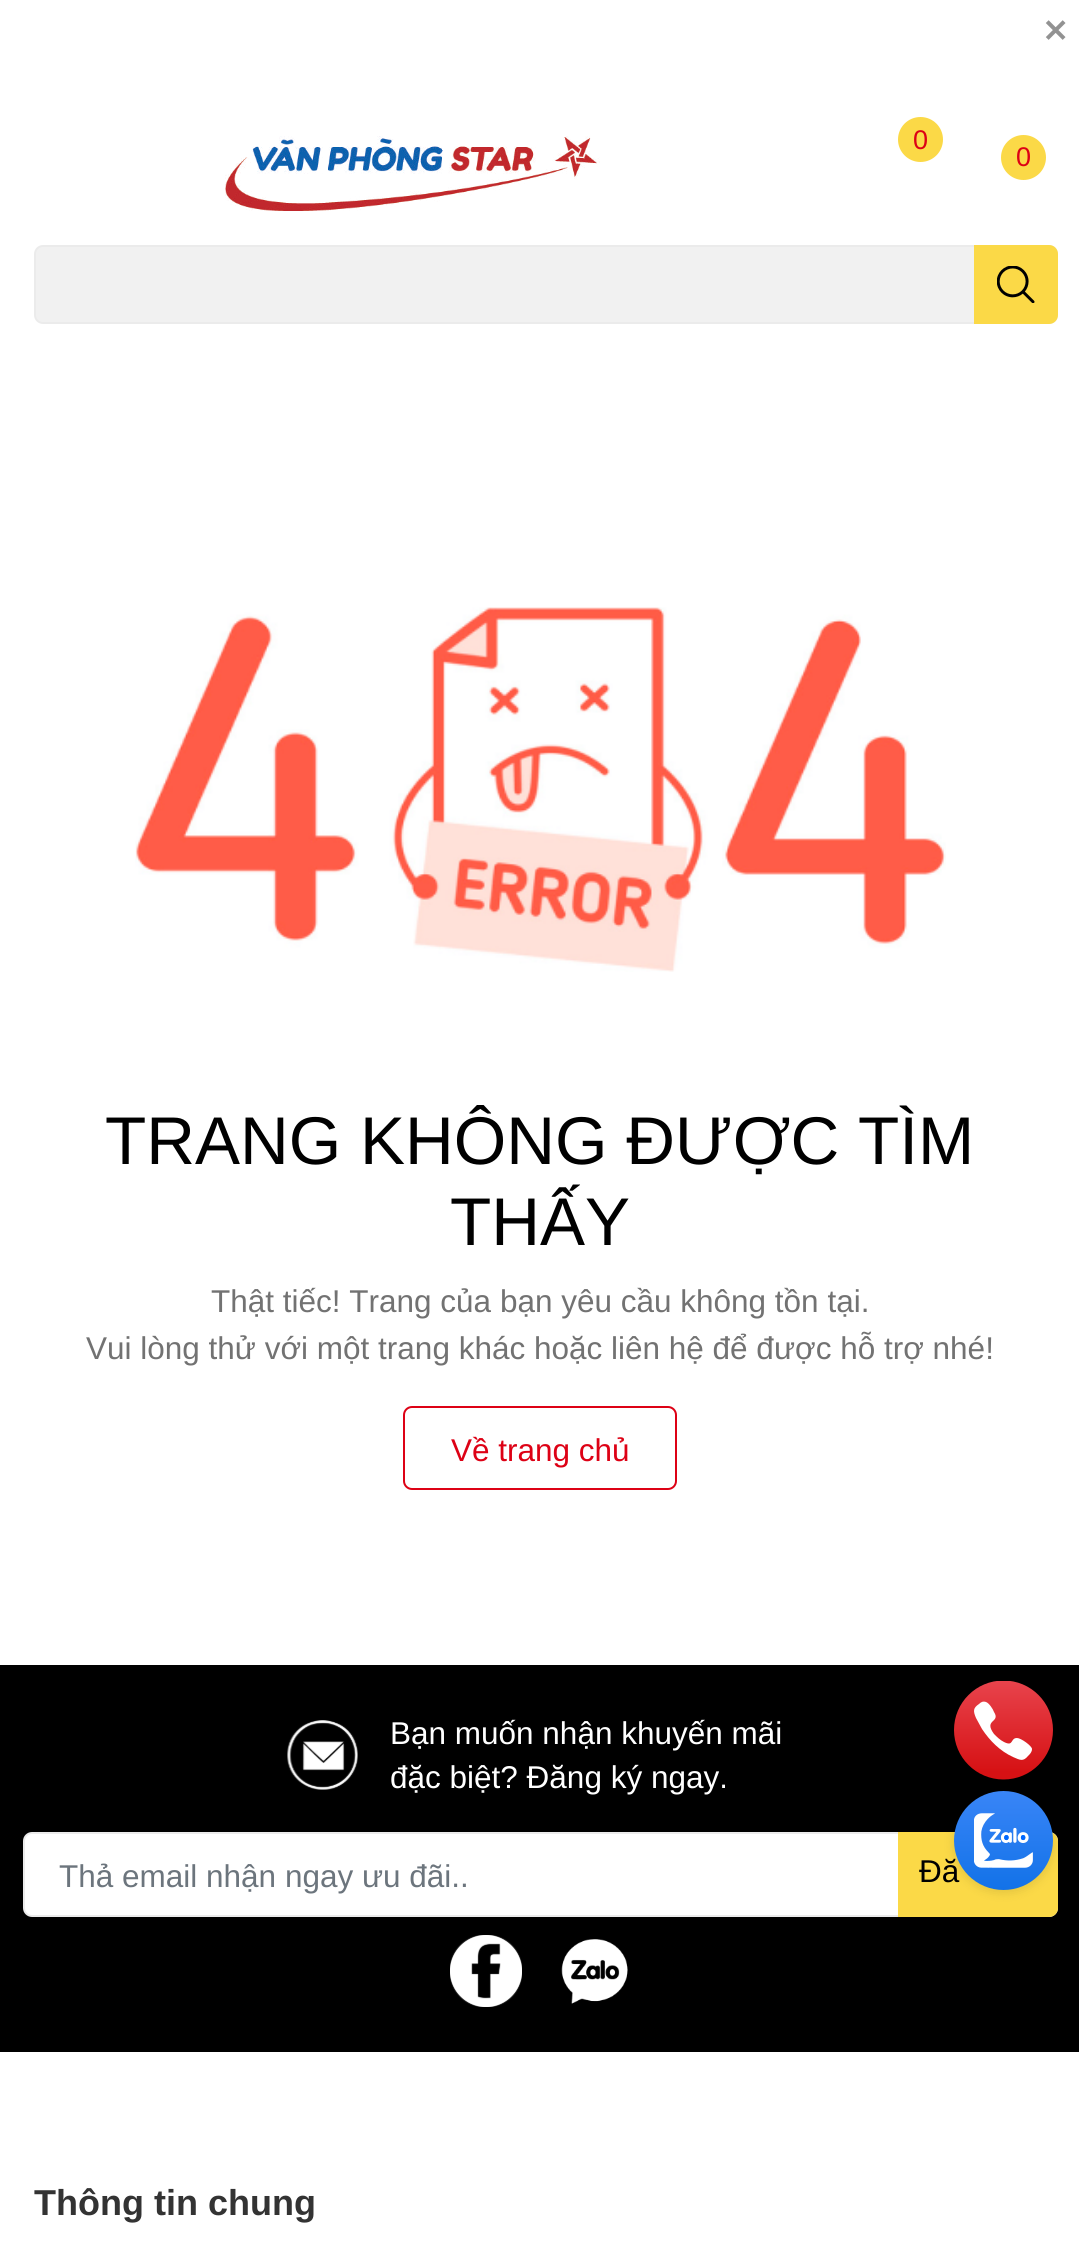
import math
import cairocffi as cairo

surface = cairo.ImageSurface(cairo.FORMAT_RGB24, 1079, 2249)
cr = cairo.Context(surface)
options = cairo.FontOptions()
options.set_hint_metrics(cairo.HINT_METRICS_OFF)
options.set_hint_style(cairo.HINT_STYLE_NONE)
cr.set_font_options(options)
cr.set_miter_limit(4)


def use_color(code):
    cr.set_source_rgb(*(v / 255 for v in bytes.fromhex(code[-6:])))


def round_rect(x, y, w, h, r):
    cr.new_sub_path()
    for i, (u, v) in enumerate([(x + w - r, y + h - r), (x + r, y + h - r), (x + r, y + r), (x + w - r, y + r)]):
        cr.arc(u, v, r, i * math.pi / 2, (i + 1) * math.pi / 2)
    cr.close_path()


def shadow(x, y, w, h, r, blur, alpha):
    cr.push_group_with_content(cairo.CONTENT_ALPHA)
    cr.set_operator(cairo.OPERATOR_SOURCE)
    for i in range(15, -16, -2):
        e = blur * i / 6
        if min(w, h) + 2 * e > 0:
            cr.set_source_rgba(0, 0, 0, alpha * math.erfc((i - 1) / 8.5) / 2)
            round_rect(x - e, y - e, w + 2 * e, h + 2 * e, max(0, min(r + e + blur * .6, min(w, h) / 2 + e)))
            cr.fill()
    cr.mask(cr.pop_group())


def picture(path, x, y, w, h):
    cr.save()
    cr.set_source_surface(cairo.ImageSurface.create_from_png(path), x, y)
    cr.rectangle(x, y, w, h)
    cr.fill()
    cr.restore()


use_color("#ffffff")
cr.paint()
cr.select_font_face("DejaVu Sans", cairo.FONT_SLANT_NORMAL, cairo.FONT_WEIGHT_BOLD)
cr.set_font_size(31.5)
use_color("#929292")
cr.move_to(1042, 42)
cr.show_text("✕")
picture("img1.png", 225, 136, 375, 75)
use_color("#fbd947")
cr.arc(920.5, 139.5, 22.5, 0, 2 * math.pi)
cr.fill()
cr.select_font_face("Liberation Sans")
cr.set_font_size(27)
use_color("#dd0115")
cr.move_to(913, 149)
cr.show_text("0")
use_color("#fbd947")
cr.new_path()
cr.arc(1023.5, 157.5, 22.5, 0, 2 * math.pi)
cr.fill()
use_color("#dd0115")
cr.move_to(1016, 166)
cr.show_text("0")
use_color("#f1f1f1")
round_rect(35, 246, 1022, 77, 8)
cr.fill_preserve()
use_color("#ebebeb")
cr.stroke()
use_color("#fbd947")
cr.new_path()
cr.move_to(974, 245)
cr.line_to(1049, 245)
cr.curve_to(1054, 245, 1058, 249, 1058, 254)
cr.line_to(1058, 315)
cr.curve_to(1058, 320, 1054, 324, 1049, 324)
cr.line_to(974, 324)
cr.close_path()
cr.fill()
picture("img2.png", 997, 266, 38, 37)
picture("img3.png", 135, 607, 811, 365)
cr.set_font_size(67.5)
use_color("#000000")
cr.move_to(105, 1164)
cr.show_text("TRANG KHÔNG ĐƯỢC TÌM")
cr.move_to(450, 1245)
cr.show_text("THẤY")
cr.set_font_size(31.5)
use_color("#727272")
cr.move_to(211, 1312)
cr.show_text("Thật tiếc! Trang của bạn yêu cầu không tồn tại.")
cr.move_to(86, 1359)
cr.show_text("Vui lòng thử với một trang khác hoặc liên hệ để được hỗ trợ nhé!")
round_rect(404, 1407, 272, 82, 8)
use_color("#dd0115")
cr.stroke()
cr.move_to(451, 1461)
cr.show_text("Về trang chủ")
use_color("#000000")
cr.rectangle(0, 1665, 1079, 387)
cr.fill()
picture("img4.png", 287, 1720, 71, 70)
use_color("#ffffff")
cr.move_to(390, 1744)
cr.show_text("Bạn muốn nhận khuyến mãi")
cr.move_to(390, 1788)
cr.show_text("đặc biệt? Đăng ký ngay.")
round_rect(24, 1833, 1033, 83, 8)
cr.fill_preserve()
use_color("#ebebeb")
cr.stroke()
use_color("#6c757d")
cr.move_to(59, 1887)
cr.show_text("Thả email nhận ngay ưu đãi..")
use_color("#fbd947")
cr.new_path()
cr.move_to(898, 1832)
cr.line_to(1049, 1832)
cr.curve_to(1054, 1832, 1058, 1836, 1058, 1841)
cr.line_to(1058, 1908)
cr.curve_to(1058, 1913, 1054, 1917, 1049, 1917)
cr.line_to(898, 1917)
cr.close_path()
cr.fill()
use_color("#000000")
cr.move_to(919, 1882)
cr.show_text("Đă")
picture("img5.png", 450, 1935, 72, 72)
picture("img6.png", 561, 1939, 67, 65)
cr.save()
cr.rectangle(954, 1681, 99, 99)
cr.clip()
gradient = cairo.LinearGradient(1004, 1681, 1004, 1772)
gradient.add_color_stop_rgba(0, 0.91, 0.263, 0.298, 1)
gradient.add_color_stop_rgba(1, 0.839, 0.067, 0.078, 1)
cr.set_source(gradient)
cr.arc(1003.5, 1730, 49.5, 0, 2 * math.pi)
cr.fill()
cr.restore()
use_color("#ffffff")
cr.set_fill_rule(cairo.FILL_RULE_EVEN_ODD)
cr.new_path()
cr.move_to(986, 1702)
cr.curve_to(989, 1703, 993, 1709, 994, 1712)
cr.curve_to(1001, 1723, 983, 1719, 994, 1734)
cr.curve_to(997, 1737, 1000, 1740, 1004, 1742)
cr.curve_to(1014, 1747, 1010, 1738, 1017, 1738)
cr.curve_to(1021, 1738, 1032, 1746, 1032, 1749)
cr.curve_to(1032, 1752, 1030, 1754, 1028, 1756)
cr.curve_to(1023, 1762, 1020, 1760, 1013, 1757)
cr.curve_to(1000, 1751, 990, 1741, 982, 1729)
cr.line_to(976, 1718)
cr.curve_to(973, 1711, 973, 1708, 979, 1704)
cr.curve_to(981, 1702, 983, 1701, 986, 1702)
cr.close_path()
cr.fill()
cr.save()
cr.new_path()
cr.move_to(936, 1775)
cr.line_to(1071, 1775)
cr.line_to(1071, 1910)
cr.line_to(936, 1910)
cr.close_path()
cr.move_to(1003.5, 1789)
cr.curve_to(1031, 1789, 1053, 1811, 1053, 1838.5)
cr.curve_to(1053, 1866, 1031, 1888, 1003.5, 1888)
cr.curve_to(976, 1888, 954, 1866, 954, 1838.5)
cr.curve_to(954, 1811, 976, 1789, 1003.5, 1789)
cr.close_path()
cr.clip()
use_color("#000000")
shadow(954, 1793, 99, 99, 49.5, 5.5, 0.11)
cr.restore()
picture("img7.png", 954, 1791, 99, 99)
cr.select_font_face("Liberation Sans", cairo.FONT_SLANT_NORMAL, cairo.FONT_WEIGHT_BOLD)
cr.set_font_size(36)
use_color("#333333")
cr.move_to(34, 2215)
cr.show_text("Thông tin chung")
surface.write_to_png("result.png")
